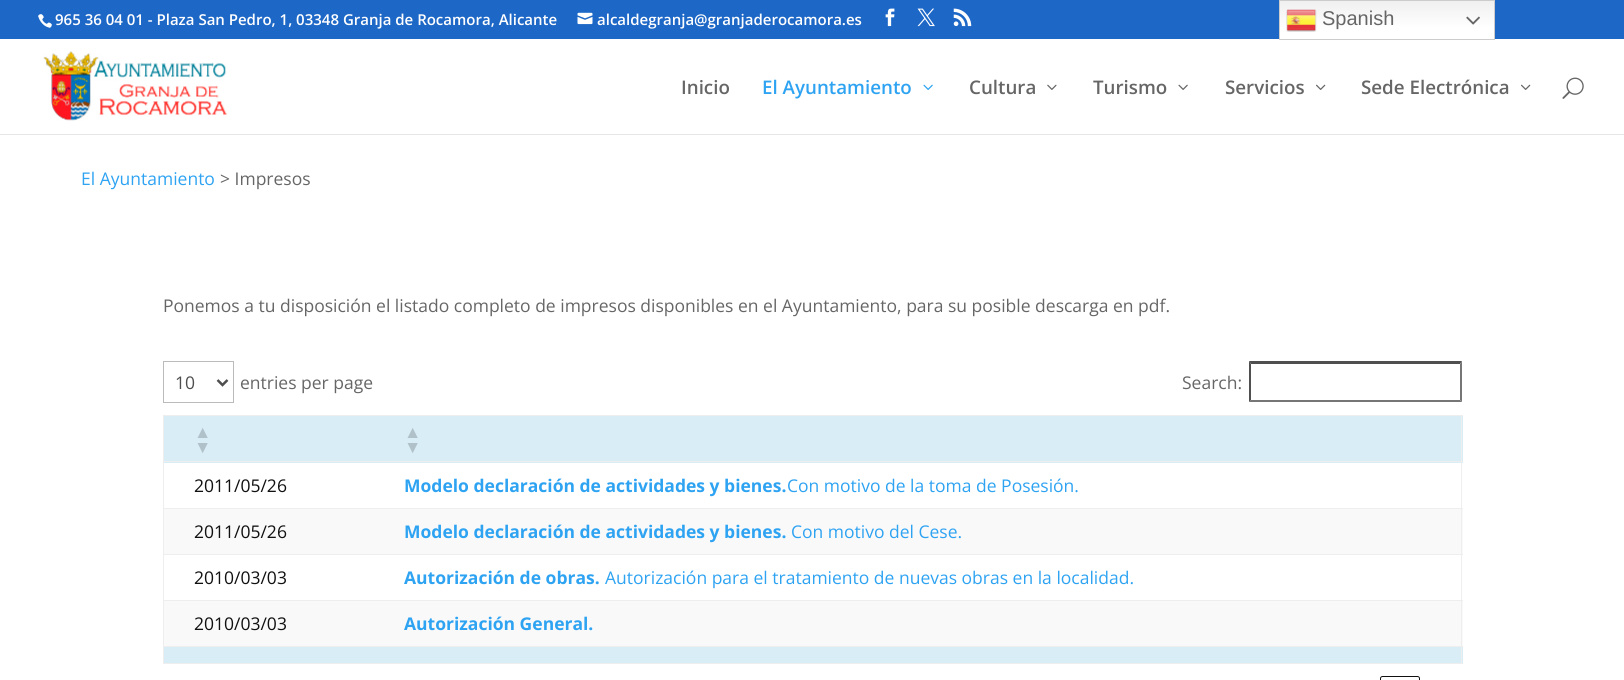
import math
import cairocffi as cairo

surface = cairo.ImageSurface(cairo.FORMAT_RGB24, 1624, 680)
cr = cairo.Context(surface)
options = cairo.FontOptions()
options.set_hint_metrics(cairo.HINT_METRICS_OFF)
options.set_hint_style(cairo.HINT_STYLE_NONE)
cr.set_font_options(options)
cr.set_miter_limit(4)


def use_color(code):
    cr.set_source_rgb(*(v / 255 for v in bytes.fromhex(code[-6:])))


def round_rect(x, y, w, h, r):
    cr.new_sub_path()
    for i, (u, v) in enumerate([(x + w - r, y + h - r), (x + r, y + h - r), (x + r, y + r), (x + w - r, y + r)]):
        cr.arc(u, v, r, i * math.pi / 2, (i + 1) * math.pi / 2)
    cr.close_path()


def picture(path, x, y, w, h):
    cr.save()
    cr.set_source_surface(cairo.ImageSurface.create_from_png(path), x, y)
    cr.rectangle(x, y, w, h)
    cr.fill()
    cr.restore()


use_color("#ffffff")
cr.paint()
use_color("#1d67c6")
cr.rectangle(0, 0, 1624, 39)
cr.fill()
gradient = cairo.LinearGradient(1387, 0, 1387, 40)
gradient.add_color_stop_rgba(0, 0.937, 0.937, 0.937, 1)
gradient.add_color_stop_rgba(0.7, 1, 1, 1, 1)
cr.set_source(gradient)
cr.rectangle(1280, 1, 214, 38)
cr.fill()
cr.rectangle(1279.5, 0.5, 215, 39)
use_color("#cccccc")
cr.set_line_width(1)
cr.stroke()
picture("img1.png", 1286, 9, 31, 23)
cr.select_font_face("Liberation Sans")
cr.set_font_size(20)
use_color("#666666")
cr.move_to(1322, 25)
cr.show_text("Spanish")
picture("img2.png", 1466, 16, 14, 9)
picture("img3.png", 38, 14, 14, 14)
cr.select_font_face("Open Sans SemiBold")
cr.set_font_size(15)
use_color("#ffffff")
cr.move_to(55, 25)
cr.show_text("965 36 04 01 - Plaza San Pedro, 1, 03348 Granja de Rocamora, Alicante")
picture("img4.png", 577, 12, 16, 13)
cr.move_to(597, 25)
cr.show_text("alcaldegranja@granjaderocamora.es")
picture("img5.png", 885, 8, 10, 19)
picture("img6.png", 917, 8, 18, 19)
picture("img7.png", 953, 8, 19, 19)
use_color("#e6e6e6")
cr.rectangle(0, 134, 1624, 1)
cr.fill()
picture("img8.png", 43, 51, 185, 70)
cr.set_font_size(18.75)
use_color("#666666")
cr.move_to(681, 94)
cr.show_text("Inicio")
use_color("#2ea3f2")
cr.move_to(762, 94)
cr.show_text("El Ayuntamiento")
picture("img9.png", 923, 84, 10, 6)
use_color("#666666")
cr.move_to(969, 94)
cr.show_text("Cultura")
picture("img10.png", 1047, 84, 10, 6)
cr.move_to(1093, 94)
cr.show_text("Turismo")
picture("img11.png", 1178, 84, 10, 6)
cr.move_to(1225, 94)
cr.show_text("Servicios")
picture("img12.png", 1316, 84, 10, 6)
cr.move_to(1361, 94)
cr.show_text("Sede Electrónica")
picture("img12.png", 1521, 84, 10, 6)
picture("img13.png", 1562, 77, 22, 22)
cr.select_font_face("Open Sans")
cr.set_font_size(17.5)
use_color("#2ea3f2")
cr.move_to(81, 185)
cr.show_text("El Ayuntamiento")
use_color("#666666")
cr.move_to(220, 185)
cr.show_text("> Impresos")
cr.move_to(163, 312)
cr.show_text("Ponemos a tu disposición el listado completo de impresos disponibles en el Ayuntamiento, para su posible descarga en pdf.")
cr.rectangle(163.5, 361.5, 70, 41)
use_color("#bbbbbb")
cr.stroke()
cr.new_path()
cr.move_to(217.5, 380)
cr.line_to(222.5, 385)
cr.line_to(227.5, 380)
use_color("#4e4e4e")
cr.set_line_width(2.5)
cr.stroke()
cr.move_to(175, 389)
cr.show_text("10")
use_color("#666666")
cr.move_to(240, 389)
cr.show_text("entries per page")
cr.move_to(1182, 389)
cr.show_text("Search:")
use_color("#4f4f4f")
cr.new_path()
cr.move_to(1249, 361)
cr.line_to(1462, 361)
cr.line_to(1460, 364)
cr.line_to(1251, 364)
cr.close_path()
cr.fill()
use_color("#767676")
cr.new_path()
cr.move_to(1462, 361)
cr.line_to(1462, 402)
cr.line_to(1460, 400)
cr.line_to(1460, 364)
cr.close_path()
cr.fill()
cr.new_path()
cr.move_to(1462, 402)
cr.line_to(1249, 402)
cr.line_to(1251, 400)
cr.line_to(1460, 400)
cr.close_path()
cr.fill()
use_color("#4f4f4f")
cr.new_path()
cr.move_to(1249, 402)
cr.line_to(1249, 361)
cr.line_to(1251, 364)
cr.line_to(1251, 400)
cr.close_path()
cr.fill()
use_color("#eeeeee")
cr.rectangle(163, 415, 1300, 1)
cr.fill()
use_color("#d9edf7")
cr.rectangle(164, 416, 1299, 47)
cr.fill()
use_color("#f9f9f9")
cr.rectangle(164, 509, 1299, 45)
cr.fill()
cr.rectangle(164, 601, 1299, 45)
cr.fill()
use_color("#d9edf7")
cr.rectangle(164, 647, 1299, 16)
cr.fill()
use_color("#eeeeee")
cr.rectangle(1461, 415, 1, 249)
cr.fill()
cr.rectangle(163, 663, 1300, 1)
cr.fill()
cr.rectangle(163, 415, 1, 249)
cr.fill()
cr.select_font_face("Liberation Sans", cairo.FONT_SLANT_NORMAL, cairo.FONT_WEIGHT_BOLD)
use_color("#b1c1c9")
cr.move_to(194, 438)
cr.show_text("▲")
cr.move_to(194, 453)
cr.show_text("▼")
cr.move_to(404, 438)
cr.show_text("▲")
cr.move_to(404, 453)
cr.show_text("▼")
cr.select_font_face("Open Sans")
use_color("#111111")
cr.move_to(194, 492)
cr.show_text("2011/05/26")
use_color("#eeeeee")
cr.rectangle(163, 461, 1300, 1)
cr.fill()
cr.select_font_face("Open Sans", cairo.FONT_SLANT_NORMAL, cairo.FONT_WEIGHT_BOLD)
use_color("#2ea3f2")
cr.move_to(404, 492)
cr.show_text("Modelo declaración de actividades y bienes.")
cr.select_font_face("Open Sans")
cr.move_to(787, 492)
cr.show_text("Con motivo de la toma de Posesión.")
use_color("#111111")
cr.move_to(194, 538)
cr.show_text("2011/05/26")
use_color("#eeeeee")
cr.rectangle(163, 508, 1300, 1)
cr.fill()
cr.select_font_face("Open Sans", cairo.FONT_SLANT_NORMAL, cairo.FONT_WEIGHT_BOLD)
use_color("#2ea3f2")
cr.move_to(404, 538)
cr.show_text("Modelo declaración de actividades y bienes.")
cr.select_font_face("Open Sans")
cr.move_to(791, 538)
cr.show_text("Con motivo del Cese.")
use_color("#111111")
cr.move_to(194, 584)
cr.show_text("2010/03/03")
use_color("#eeeeee")
cr.rectangle(163, 554, 1300, 1)
cr.fill()
cr.select_font_face("Open Sans", cairo.FONT_SLANT_NORMAL, cairo.FONT_WEIGHT_BOLD)
use_color("#2ea3f2")
cr.move_to(404, 584)
cr.show_text("Autorización de obras.")
cr.select_font_face("Open Sans")
cr.move_to(605, 584)
cr.show_text("Autorización para el tratamiento de nuevas obras en la localidad.")
use_color("#111111")
cr.move_to(194, 630)
cr.show_text("2010/03/03")
use_color("#eeeeee")
cr.rectangle(163, 600, 1300, 1)
cr.fill()
cr.select_font_face("Open Sans", cairo.FONT_SLANT_NORMAL, cairo.FONT_WEIGHT_BOLD)
use_color("#2ea3f2")
cr.move_to(404, 630)
cr.show_text("Autorización General.")
use_color("#eeeeee")
cr.rectangle(163, 646, 1300, 1)
cr.fill()
round_rect(1380.5, 676.5, 39, 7, 2)
use_color("#111111")
cr.set_line_width(1)
cr.stroke()
surface.write_to_png("result.png")
